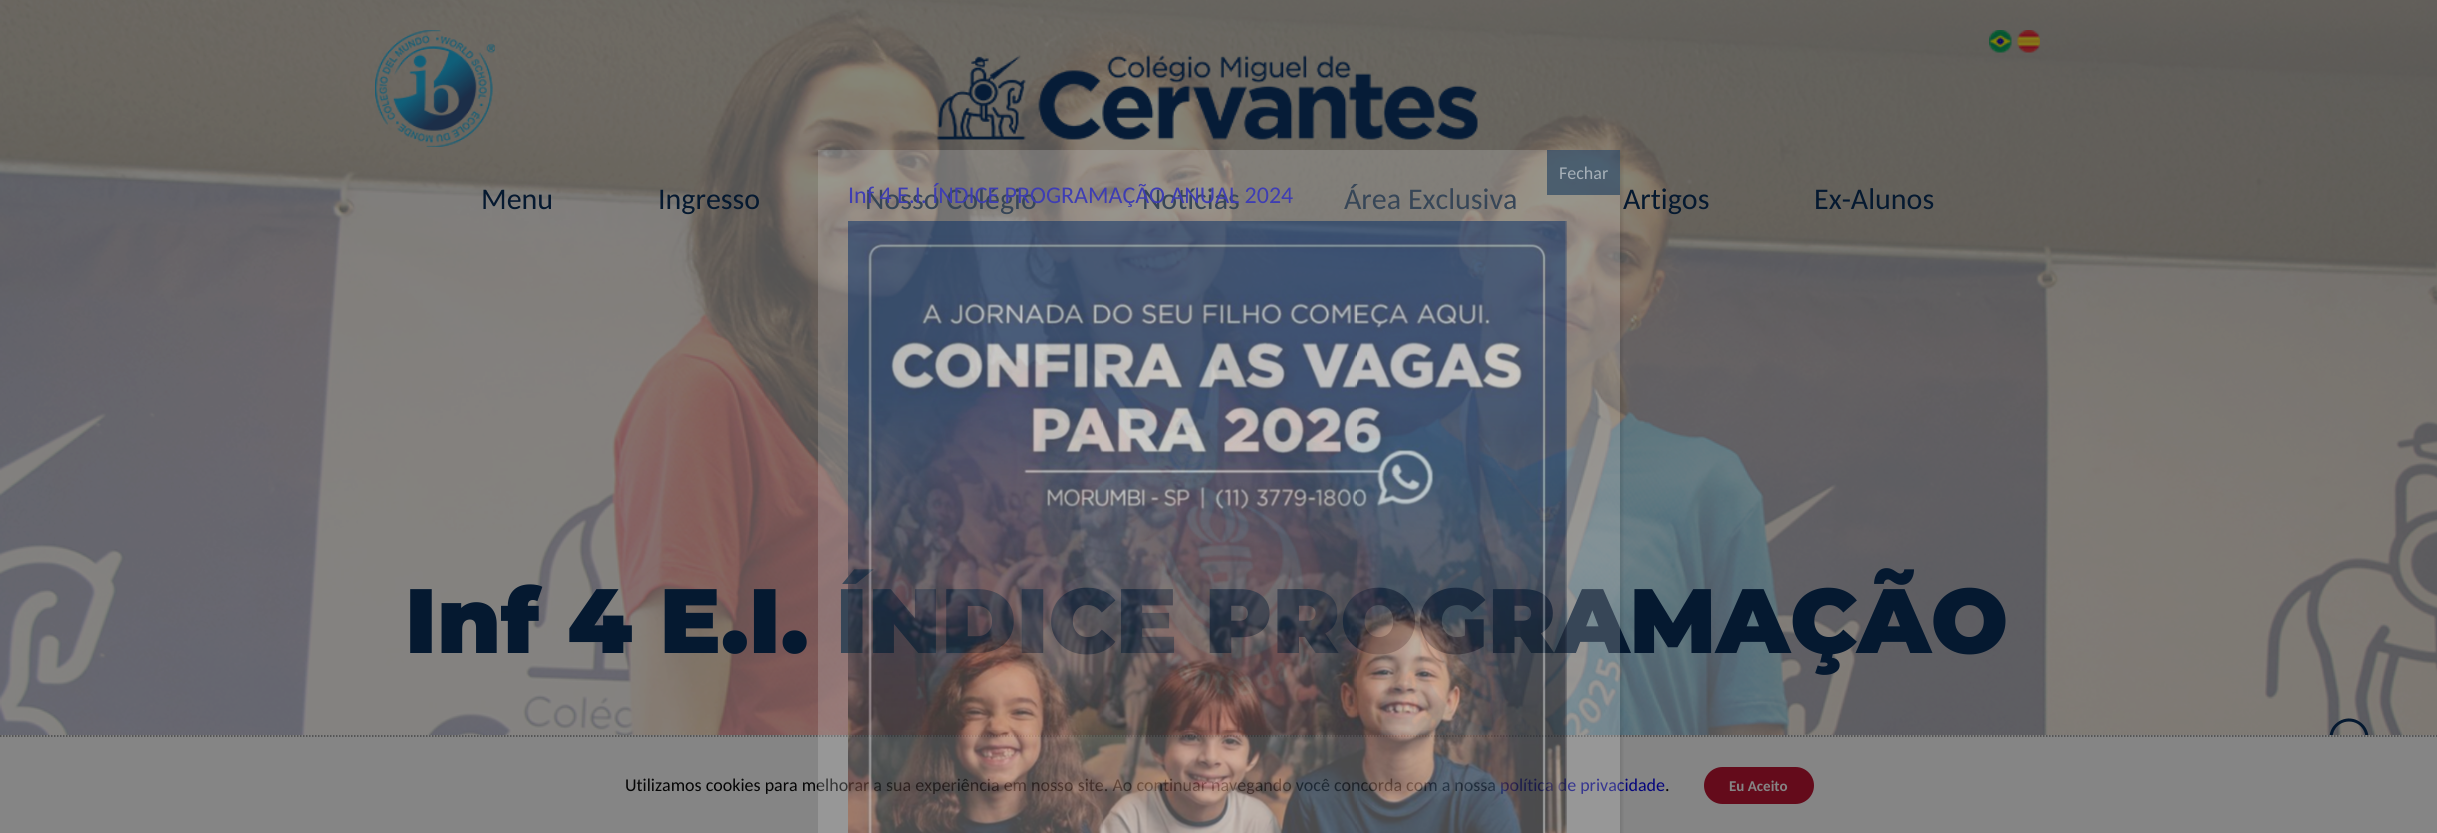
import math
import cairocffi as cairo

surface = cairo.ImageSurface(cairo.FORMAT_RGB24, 2437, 833)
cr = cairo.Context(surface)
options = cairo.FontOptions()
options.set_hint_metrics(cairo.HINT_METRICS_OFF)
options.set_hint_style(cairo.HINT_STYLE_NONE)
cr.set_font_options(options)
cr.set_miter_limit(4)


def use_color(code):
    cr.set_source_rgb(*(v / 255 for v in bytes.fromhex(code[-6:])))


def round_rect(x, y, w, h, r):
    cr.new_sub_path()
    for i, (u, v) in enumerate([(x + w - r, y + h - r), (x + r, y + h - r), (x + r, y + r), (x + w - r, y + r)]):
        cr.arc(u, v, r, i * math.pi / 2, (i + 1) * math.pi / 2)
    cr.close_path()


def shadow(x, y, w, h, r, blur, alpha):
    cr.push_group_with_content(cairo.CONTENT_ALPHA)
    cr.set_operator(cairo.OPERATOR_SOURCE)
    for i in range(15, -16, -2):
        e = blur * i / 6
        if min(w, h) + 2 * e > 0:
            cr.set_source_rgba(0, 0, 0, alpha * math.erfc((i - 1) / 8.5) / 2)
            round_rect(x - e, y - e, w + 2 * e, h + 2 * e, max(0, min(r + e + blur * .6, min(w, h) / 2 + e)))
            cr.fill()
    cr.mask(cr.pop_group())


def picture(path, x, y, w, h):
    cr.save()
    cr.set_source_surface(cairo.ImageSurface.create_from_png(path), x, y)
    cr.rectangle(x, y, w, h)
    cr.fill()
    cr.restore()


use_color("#858585")
cr.paint()
picture("img2.png", 0, 0, 2437, 735)
cr.new_path()
cr.move_to(0, 736)
cr.line_to(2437.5, 736)
use_color("#454545")
cr.set_line_width(1.5)
cr.set_dash([1.5, 1.5])
cr.stroke()
cr.save()
cr.rectangle(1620, 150, 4, 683)
cr.clip()
use_color("#020202")
shadow(819, 152, 803, 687, 0, 2, 0.12)
cr.restore()
cr.select_font_face("Carlito")
cr.set_font_size(30)
use_color("#051930")
cr.move_to(865, 209)
cr.show_text("Nosso Colégio")
cr.move_to(1142, 209)
cr.show_text("Notícias")
cr.move_to(1344, 209)
cr.show_text("Área Exclusiva")
cr.select_font_face("Montserrat Black")
cr.set_font_size(91.25)
cr.move_to(405, 653)
cr.show_text("Inf 4 E.I. ÍNDICE PROGRAMAÇÃO")
cr.select_font_face("Carlito")
cr.set_font_size(18)
use_color("#050505")
cr.move_to(625, 791)
cr.show_text("Utilizamos cookies para melhorar a sua experiência em nosso site. Ao continuar navegando você concorda com a nossa")
use_color("#05057c")
cr.move_to(1500, 791)
cr.show_text("política de privacidade")
cr.set_source_rgba(0.804, 0.804, 0.804, 0.25)
cr.rectangle(818, 150, 802, 683)
cr.fill()
cr.set_source_rgba(0, 0.157, 0.333, 0.5)
cr.rectangle(1547, 150, 73, 45)
cr.fill()
use_color("#a6b0b8")
cr.move_to(1559, 179)
cr.show_text("Fechar")
cr.set_font_size(24)
use_color("#3e3db3")
cr.move_to(848, 203)
cr.show_text("Inf 4 E.I. ÍNDICE PROGRAMAÇÃO ANUAL 2024")
picture("img1.png", 848, 221, 719, 612)
picture("img3.png", 375, 30, 120, 117)
picture("img4.png", 1989, 30, 23, 23)
picture("img5.png", 2017, 30, 23, 23)
picture("img6.png", 937, 55, 541, 85)
cr.set_font_size(30)
use_color("#051930")
cr.move_to(481, 209)
cr.show_text("Menu")
cr.move_to(658, 209)
cr.show_text("Ingresso")
cr.move_to(1623, 209)
cr.show_text("Artigos")
cr.move_to(1814, 209)
cr.show_text("Ex-Alunos")
picture("img7.png", 2329, 718, 40, 17)
cr.set_font_size(18)
use_color("#050505")
cr.move_to(1665, 791)
cr.show_text(".")
use_color("#640b1b")
round_rect(1704, 767, 110, 37, 18.5)
cr.fill()
cr.select_font_face("Carlito", cairo.FONT_SLANT_NORMAL, cairo.FONT_WEIGHT_BOLD)
cr.set_font_size(15)
use_color("#858585")
cr.move_to(1729, 791)
cr.show_text("Eu Aceito")
surface.write_to_png("result.png")
